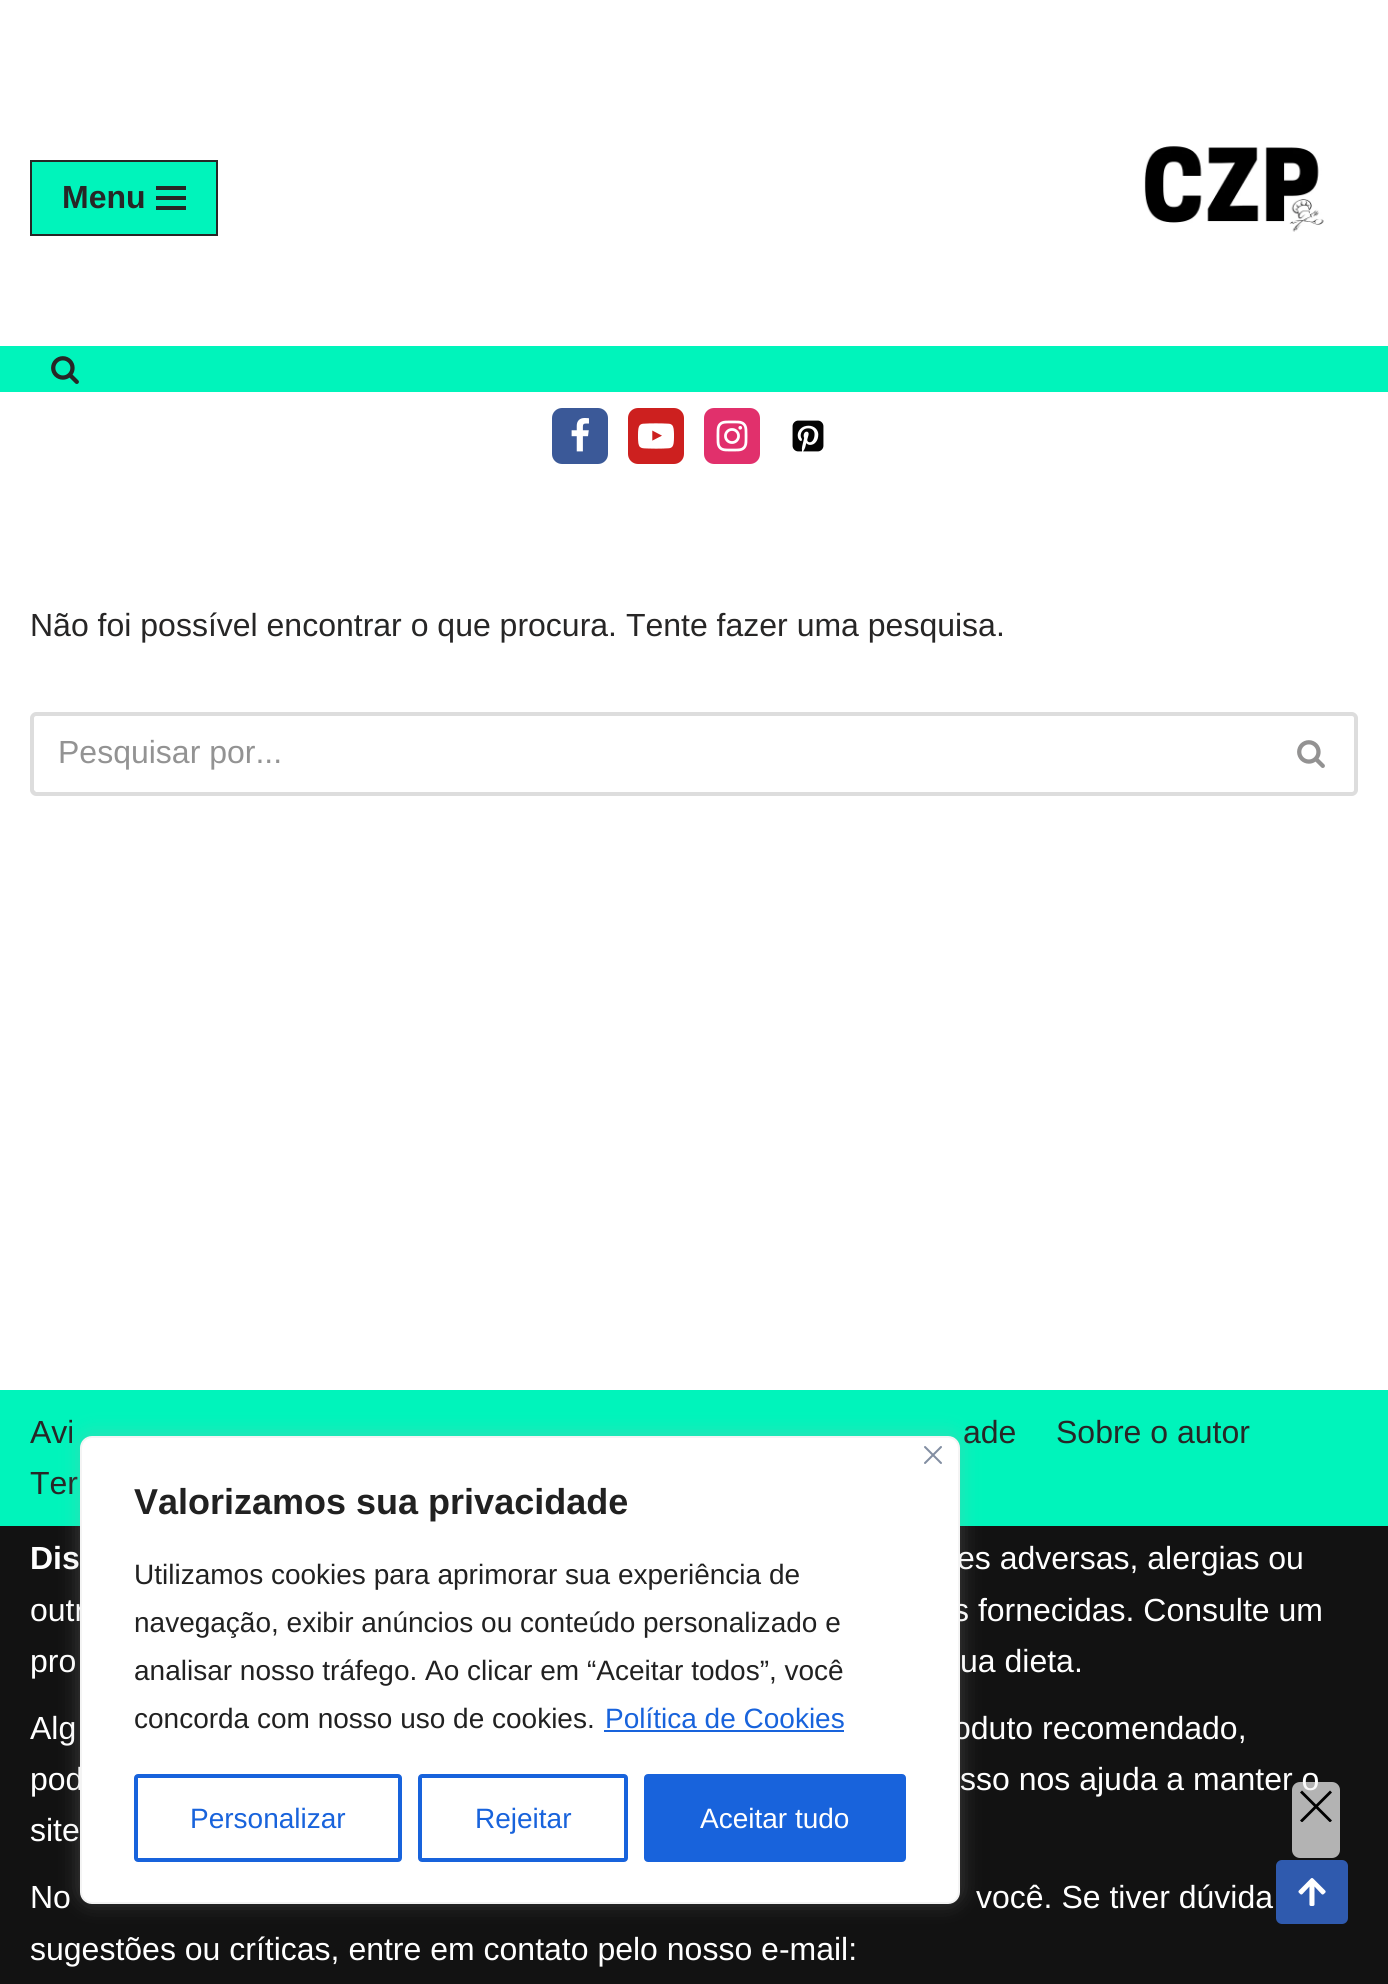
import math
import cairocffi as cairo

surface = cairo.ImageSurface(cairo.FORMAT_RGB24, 1388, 1984)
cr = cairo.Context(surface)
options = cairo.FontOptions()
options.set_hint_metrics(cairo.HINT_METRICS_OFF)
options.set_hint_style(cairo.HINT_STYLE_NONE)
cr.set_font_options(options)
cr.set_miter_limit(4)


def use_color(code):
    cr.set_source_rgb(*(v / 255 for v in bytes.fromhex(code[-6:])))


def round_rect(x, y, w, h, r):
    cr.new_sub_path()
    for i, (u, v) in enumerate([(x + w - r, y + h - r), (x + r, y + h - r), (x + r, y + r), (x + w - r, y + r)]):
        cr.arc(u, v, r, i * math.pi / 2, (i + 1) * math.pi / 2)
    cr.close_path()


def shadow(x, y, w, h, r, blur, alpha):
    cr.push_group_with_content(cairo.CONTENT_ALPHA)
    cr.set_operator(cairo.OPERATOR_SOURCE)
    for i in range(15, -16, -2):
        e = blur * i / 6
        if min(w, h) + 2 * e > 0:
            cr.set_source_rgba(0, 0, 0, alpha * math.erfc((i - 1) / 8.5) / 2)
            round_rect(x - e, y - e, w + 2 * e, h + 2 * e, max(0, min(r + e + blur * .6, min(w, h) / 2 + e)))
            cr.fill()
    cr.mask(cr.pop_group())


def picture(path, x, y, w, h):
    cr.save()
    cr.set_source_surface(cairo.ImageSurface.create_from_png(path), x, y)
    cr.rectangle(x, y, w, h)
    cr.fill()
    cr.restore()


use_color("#ffffff")
cr.paint()
use_color("#00f4bb")
cr.rectangle(31, 161, 186, 74)
cr.fill_preserve()
use_color("#272626")
cr.stroke()
cr.select_font_face("Liberation Sans", cairo.FONT_SLANT_NORMAL, cairo.FONT_WEIGHT_BOLD)
cr.set_font_size(32)
cr.move_to(62, 208)
cr.show_text("Menu")
cr.rectangle(156, 186, 30, 4)
cr.fill()
cr.rectangle(156, 196, 30, 4)
cr.fill()
cr.rectangle(156, 206, 30, 4)
cr.fill()
picture("img1.png", 1144, 146, 180, 86)
use_color("#00f4bb")
cr.rectangle(0, 346, 1388, 46)
cr.fill()
picture("img2.png", 51, 356, 28, 28)
use_color("#3b5998")
round_rect(552, 408, 56, 56, 10)
cr.fill()
picture("img3.png", 571, 418, 18, 34)
use_color("#cd201f")
round_rect(628, 408, 56, 56, 10)
cr.fill()
picture("img4.png", 638, 423, 36, 26)
use_color("#e1306c")
round_rect(704, 408, 56, 56, 10)
cr.fill()
picture("img5.png", 716, 420, 32, 32)
picture("img6.png", 792, 420, 32, 32)
cr.select_font_face("Liberation Sans")
use_color("#272626")
cr.move_to(30, 636)
cr.show_text("Não foi possível encontrar o que procura. Tente fazer uma pesquisa.")
use_color("#dddddd")
cr.set_fill_rule(cairo.FILL_RULE_EVEN_ODD)
cr.new_path()
cr.move_to(36, 712)
cr.line_to(1268, 712)
cr.line_to(1268, 796)
cr.line_to(36, 796)
cr.curve_to(33, 796, 30, 793, 30, 790)
cr.line_to(30, 718)
cr.curve_to(30, 715, 33, 712, 36, 712)
cr.close_path()
cr.move_to(36, 716)
cr.line_to(1268, 716)
cr.line_to(1268, 792)
cr.line_to(36, 792)
cr.line_to(35, 791)
cr.line_to(34, 790)
cr.line_to(34, 718)
cr.curve_to(34, 717, 35, 716, 36, 716)
cr.close_path()
cr.fill()
use_color("#939393")
cr.move_to(58, 763)
cr.show_text("Pesquisar por...")
use_color("#dddddd")
cr.new_path()
cr.move_to(1268, 712)
cr.line_to(1352, 712)
cr.curve_to(1355, 712, 1358, 715, 1358, 718)
cr.line_to(1358, 790)
cr.curve_to(1358, 793, 1355, 796, 1352, 796)
cr.line_to(1268, 796)
cr.close_path()
cr.move_to(1268, 716)
cr.line_to(1352, 716)
cr.curve_to(1353, 716, 1354, 717, 1354, 718)
cr.line_to(1354, 790)
cr.curve_to(1354, 791, 1353, 792, 1352, 792)
cr.line_to(1268, 792)
cr.close_path()
cr.fill()
picture("img7.png", 1297, 740, 28, 28)
use_color("#00f4bb")
cr.rectangle(0, 1390, 1388, 136)
cr.fill()
use_color("#272626")
cr.move_to(30, 1443)
cr.show_text("Avi")
cr.move_to(963, 1443)
cr.show_text("ade")
cr.move_to(1056, 1443)
cr.show_text("Sobre o autor")
cr.move_to(30, 1494)
cr.show_text("Ter")
use_color("#121212")
cr.rectangle(0, 1526, 1388, 458)
cr.fill()
cr.select_font_face("Liberation Sans", cairo.FONT_SLANT_NORMAL, cairo.FONT_WEIGHT_BOLD)
use_color("#ffffff")
cr.move_to(30, 1569)
cr.show_text("Dis")
cr.select_font_face("Liberation Sans")
cr.move_to(957, 1569)
cr.show_text("es adversas, alergias ou")
cr.move_to(30, 1621)
cr.show_text("outr")
cr.move_to(953, 1621)
cr.show_text("s fornecidas. Consulte um")
cr.move_to(30, 1672)
cr.show_text("pro")
cr.move_to(960, 1672)
cr.show_text("ua dieta.")
cr.move_to(30, 1739)
cr.show_text("Alg")
cr.move_to(953, 1739)
cr.show_text("oduto recomendado,")
cr.move_to(30, 1790)
cr.show_text("pod")
cr.move_to(960, 1790)
cr.show_text("sso nos ajuda a manter o")
cr.move_to(30, 1841)
cr.show_text("site")
cr.move_to(30, 1908)
cr.show_text("No")
cr.move_to(976, 1908)
cr.show_text("você. Se tiver dúvida")
cr.move_to(30, 1960)
cr.show_text("sugestões ou críticas, entre em contato pelo nosso e-mail:")
use_color("#2f5aae")
round_rect(1276, 1860, 72, 64, 6)
cr.fill()
picture("img8.png", 1298, 1878, 28, 28)
use_color("#acabab")
shadow(80, 1434, 880, 468, 12, 10, 0.3)
use_color("#ffffff")
round_rect(81, 1437, 878, 466, 11)
cr.fill_preserve()
use_color("#f4f4f4")
cr.stroke()
picture("img9.png", 924, 1446, 18, 18)
cr.select_font_face("Liberation Sans", cairo.FONT_SLANT_NORMAL, cairo.FONT_WEIGHT_BOLD)
cr.set_font_size(36)
use_color("#212121")
cr.move_to(134, 1514)
cr.show_text("Valorizamos sua privacidade")
cr.select_font_face("Liberation Sans")
cr.set_font_size(28)
cr.move_to(134, 1584)
cr.show_text("Utilizamos cookies para aprimorar sua experiência de")
cr.move_to(134, 1632)
cr.show_text("navegação, exibir anúncios ou conteúdo personalizado e")
cr.move_to(134, 1680)
cr.show_text("analisar nosso tráfego. Ao clicar em “Aceitar todos”, você")
cr.move_to(134, 1728)
cr.show_text("concorda com nosso uso de cookies.")
use_color("#1863dc")
cr.move_to(605, 1728)
cr.show_text("Política de Cookies")
cr.rectangle(604, 1730, 240, 2)
cr.fill()
round_rect(136, 1776, 264, 84, 2)
cr.set_line_width(4)
cr.stroke()
cr.move_to(190, 1828)
cr.show_text("Personalizar")
round_rect(420, 1776, 206, 84, 2)
cr.stroke()
cr.move_to(475, 1828)
cr.show_text("Rejeitar")
round_rect(646, 1776, 258, 84, 2)
cr.fill_preserve()
cr.stroke()
use_color("#ffffff")
cr.move_to(700, 1828)
cr.show_text("Aceitar tudo")
cr.set_source_rgba(0.973, 0.973, 0.976, 0.7)
round_rect(1292, 1782, 48, 76, 8)
cr.fill()
cr.save()
cr.set_fill_rule(cairo.FILL_RULE_WINDING)
cr.rectangle(1300, 1790, 32, 32)
cr.clip()
use_color("#000000")
cr.new_path()
cr.move_to(1330, 1790.5)
cr.line_to(1316, 1804.5)
cr.line_to(1302, 1790.5)
cr.line_to(1300, 1792.5)
cr.line_to(1314, 1806.5)
cr.line_to(1300, 1820.5)
cr.line_to(1302, 1822.5)
cr.line_to(1316, 1808.5)
cr.line_to(1330, 1822.5)
cr.line_to(1332, 1820.5)
cr.line_to(1318, 1806.5)
cr.line_to(1332, 1792.5)
cr.close_path()
cr.fill()
cr.restore()
surface.write_to_png("result.png")
